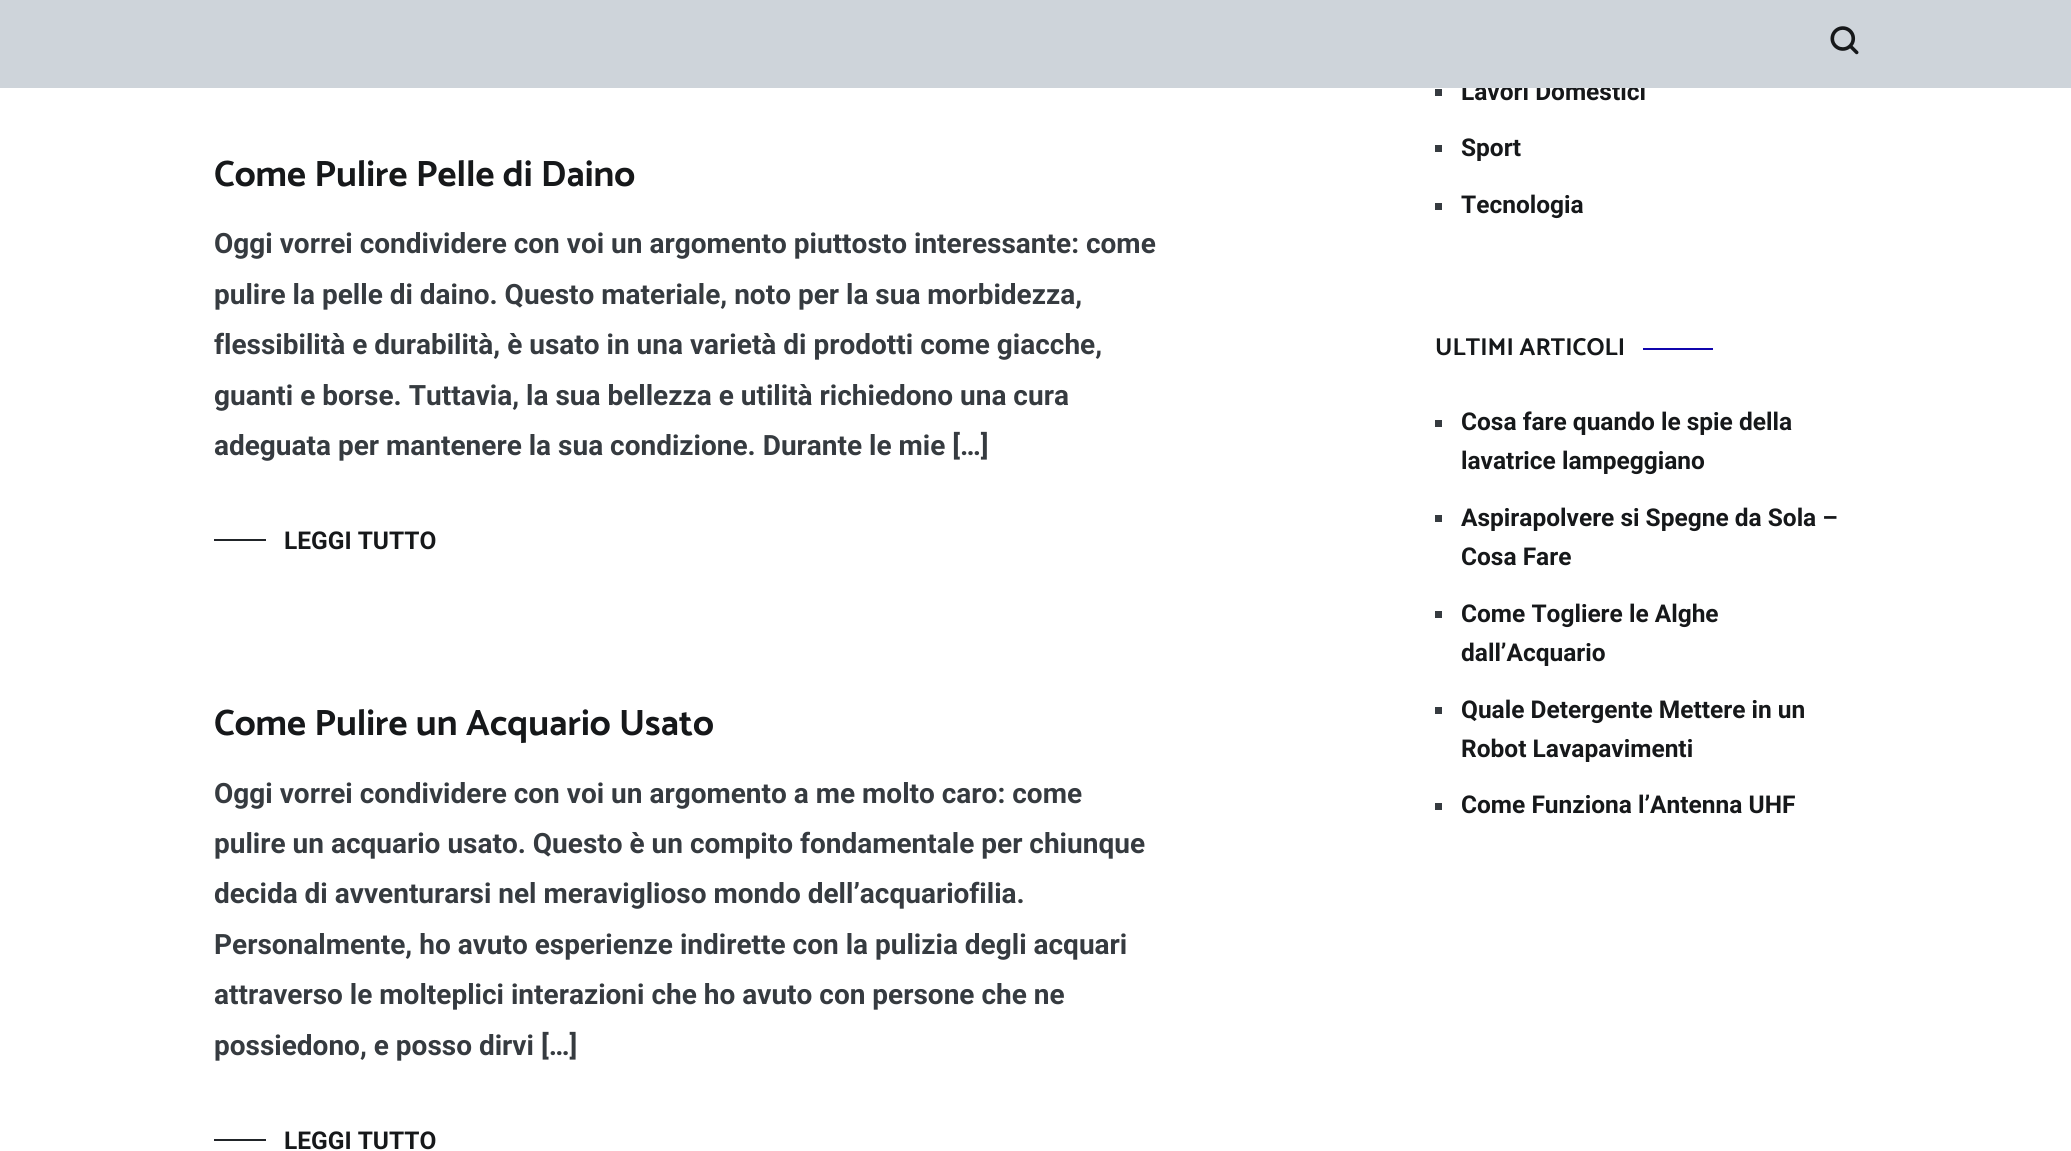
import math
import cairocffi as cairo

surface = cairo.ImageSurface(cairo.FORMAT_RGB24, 2071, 1151)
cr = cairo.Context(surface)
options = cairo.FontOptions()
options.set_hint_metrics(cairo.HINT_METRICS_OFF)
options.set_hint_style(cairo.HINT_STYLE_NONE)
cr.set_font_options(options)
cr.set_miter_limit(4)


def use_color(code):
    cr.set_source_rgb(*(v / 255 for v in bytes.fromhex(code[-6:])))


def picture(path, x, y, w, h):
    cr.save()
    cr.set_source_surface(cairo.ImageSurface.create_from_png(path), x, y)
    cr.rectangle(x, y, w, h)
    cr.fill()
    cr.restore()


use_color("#ffffff")
cr.paint()
cr.select_font_face("Roboto", cairo.FONT_SLANT_NORMAL, cairo.FONT_WEIGHT_BOLD)
cr.set_font_size(24.5)
use_color("#16181a")
cr.move_to(1461, 100)
cr.show_text("Lavori Domestici")
use_color("#ced4da")
cr.rectangle(0, 0, 2071, 88)
cr.fill()
picture("img1.png", 1830, 26, 29, 29)
cr.select_font_face("Catamaran", cairo.FONT_SLANT_NORMAL, cairo.FONT_WEIGHT_BOLD)
cr.set_font_size(36.75)
use_color("#16181a")
cr.move_to(214, 186)
cr.show_text("Come Pulire Pelle di Daino")
cr.select_font_face("Roboto", cairo.FONT_SLANT_NORMAL, cairo.FONT_WEIGHT_BOLD)
cr.set_font_size(28)
use_color("#363b40")
cr.move_to(214, 253)
cr.show_text("Oggi vorrei condividere con voi un argomento piuttosto interessante: come")
cr.move_to(214, 304)
cr.show_text("pulire la pelle di daino. Questo materiale, noto per la sua morbidezza,")
cr.move_to(214, 354)
cr.show_text("flessibilità e durabilità, è usato in una varietà di prodotti come giacche,")
cr.move_to(214, 405)
cr.show_text("guanti e borse. Tuttavia, la sua bellezza e utilità richiedono una cura")
cr.move_to(214, 455)
cr.show_text("adeguata per mantenere la sua condizione. Durante le mie […]")
use_color("#212529")
cr.rectangle(214, 539, 52, 2)
cr.fill()
cr.set_font_size(24.5)
use_color("#16181a")
cr.move_to(284, 549)
cr.show_text("LEGGI TUTTO")
cr.select_font_face("Catamaran", cairo.FONT_SLANT_NORMAL, cairo.FONT_WEIGHT_BOLD)
cr.set_font_size(36.75)
cr.move_to(214, 735)
cr.show_text("Come Pulire un Acquario Usato")
cr.select_font_face("Roboto", cairo.FONT_SLANT_NORMAL, cairo.FONT_WEIGHT_BOLD)
cr.set_font_size(28)
use_color("#363b40")
cr.move_to(214, 803)
cr.show_text("Oggi vorrei condividere con voi un argomento a me molto caro: come")
cr.move_to(214, 853)
cr.show_text("pulire un acquario usato. Questo è un compito fondamentale per chiunque")
cr.move_to(214, 903)
cr.show_text("decida di avventurarsi nel meraviglioso mondo dell’acquariofilia.")
cr.move_to(214, 954)
cr.show_text("Personalmente, ho avuto esperienze indirette con la pulizia degli acquari")
cr.move_to(214, 1004)
cr.show_text("attraverso le molteplici interazioni che ho avuto con persone che ne")
cr.move_to(214, 1055)
cr.show_text("possiedono, e posso dirvi […]")
use_color("#212529")
cr.rectangle(214, 1139, 52, 2)
cr.fill()
cr.set_font_size(24.5)
use_color("#16181a")
cr.move_to(284, 1149)
cr.show_text("LEGGI TUTTO")
use_color("#363b40")
cr.rectangle(1435, 89, 7, 7)
cr.fill()
cr.rectangle(1435, 145, 7, 7)
cr.fill()
use_color("#16181a")
cr.move_to(1461, 156)
cr.show_text("Sport")
use_color("#363b40")
cr.rectangle(1435, 203, 7, 7)
cr.fill()
use_color("#16181a")
cr.move_to(1461, 213)
cr.show_text("Tecnologia")
cr.select_font_face("Catamaran", cairo.FONT_SLANT_NORMAL, cairo.FONT_WEIGHT_BOLD)
cr.move_to(1435, 355)
cr.show_text("ULTIMI ARTICOLI")
use_color("#1005ad")
cr.rectangle(1643, 348, 70, 2)
cr.fill()
use_color("#363b40")
cr.rectangle(1435, 420, 7, 7)
cr.fill()
cr.select_font_face("Roboto", cairo.FONT_SLANT_NORMAL, cairo.FONT_WEIGHT_BOLD)
use_color("#16181a")
cr.move_to(1461, 430)
cr.show_text("Cosa fare quando le spie della")
cr.move_to(1461, 469)
cr.show_text("lavatrice lampeggiano")
use_color("#363b40")
cr.rectangle(1435, 515, 7, 7)
cr.fill()
use_color("#16181a")
cr.move_to(1461, 526)
cr.show_text("Aspirapolvere si Spegne da Sola –")
cr.move_to(1461, 565)
cr.show_text("Cosa Fare")
use_color("#363b40")
cr.rectangle(1435, 611, 7, 7)
cr.fill()
use_color("#16181a")
cr.move_to(1461, 622)
cr.show_text("Come Togliere le Alghe")
cr.move_to(1461, 661)
cr.show_text("dall’Acquario")
use_color("#363b40")
cr.rectangle(1435, 707, 7, 7)
cr.fill()
use_color("#16181a")
cr.move_to(1461, 718)
cr.show_text("Quale Detergente Mettere in un")
cr.move_to(1461, 757)
cr.show_text("Robot Lavapavimenti")
use_color("#363b40")
cr.rectangle(1435, 803, 7, 7)
cr.fill()
use_color("#16181a")
cr.move_to(1461, 813)
cr.show_text("Come Funziona l’Antenna UHF")
surface.write_to_png("result.png")
